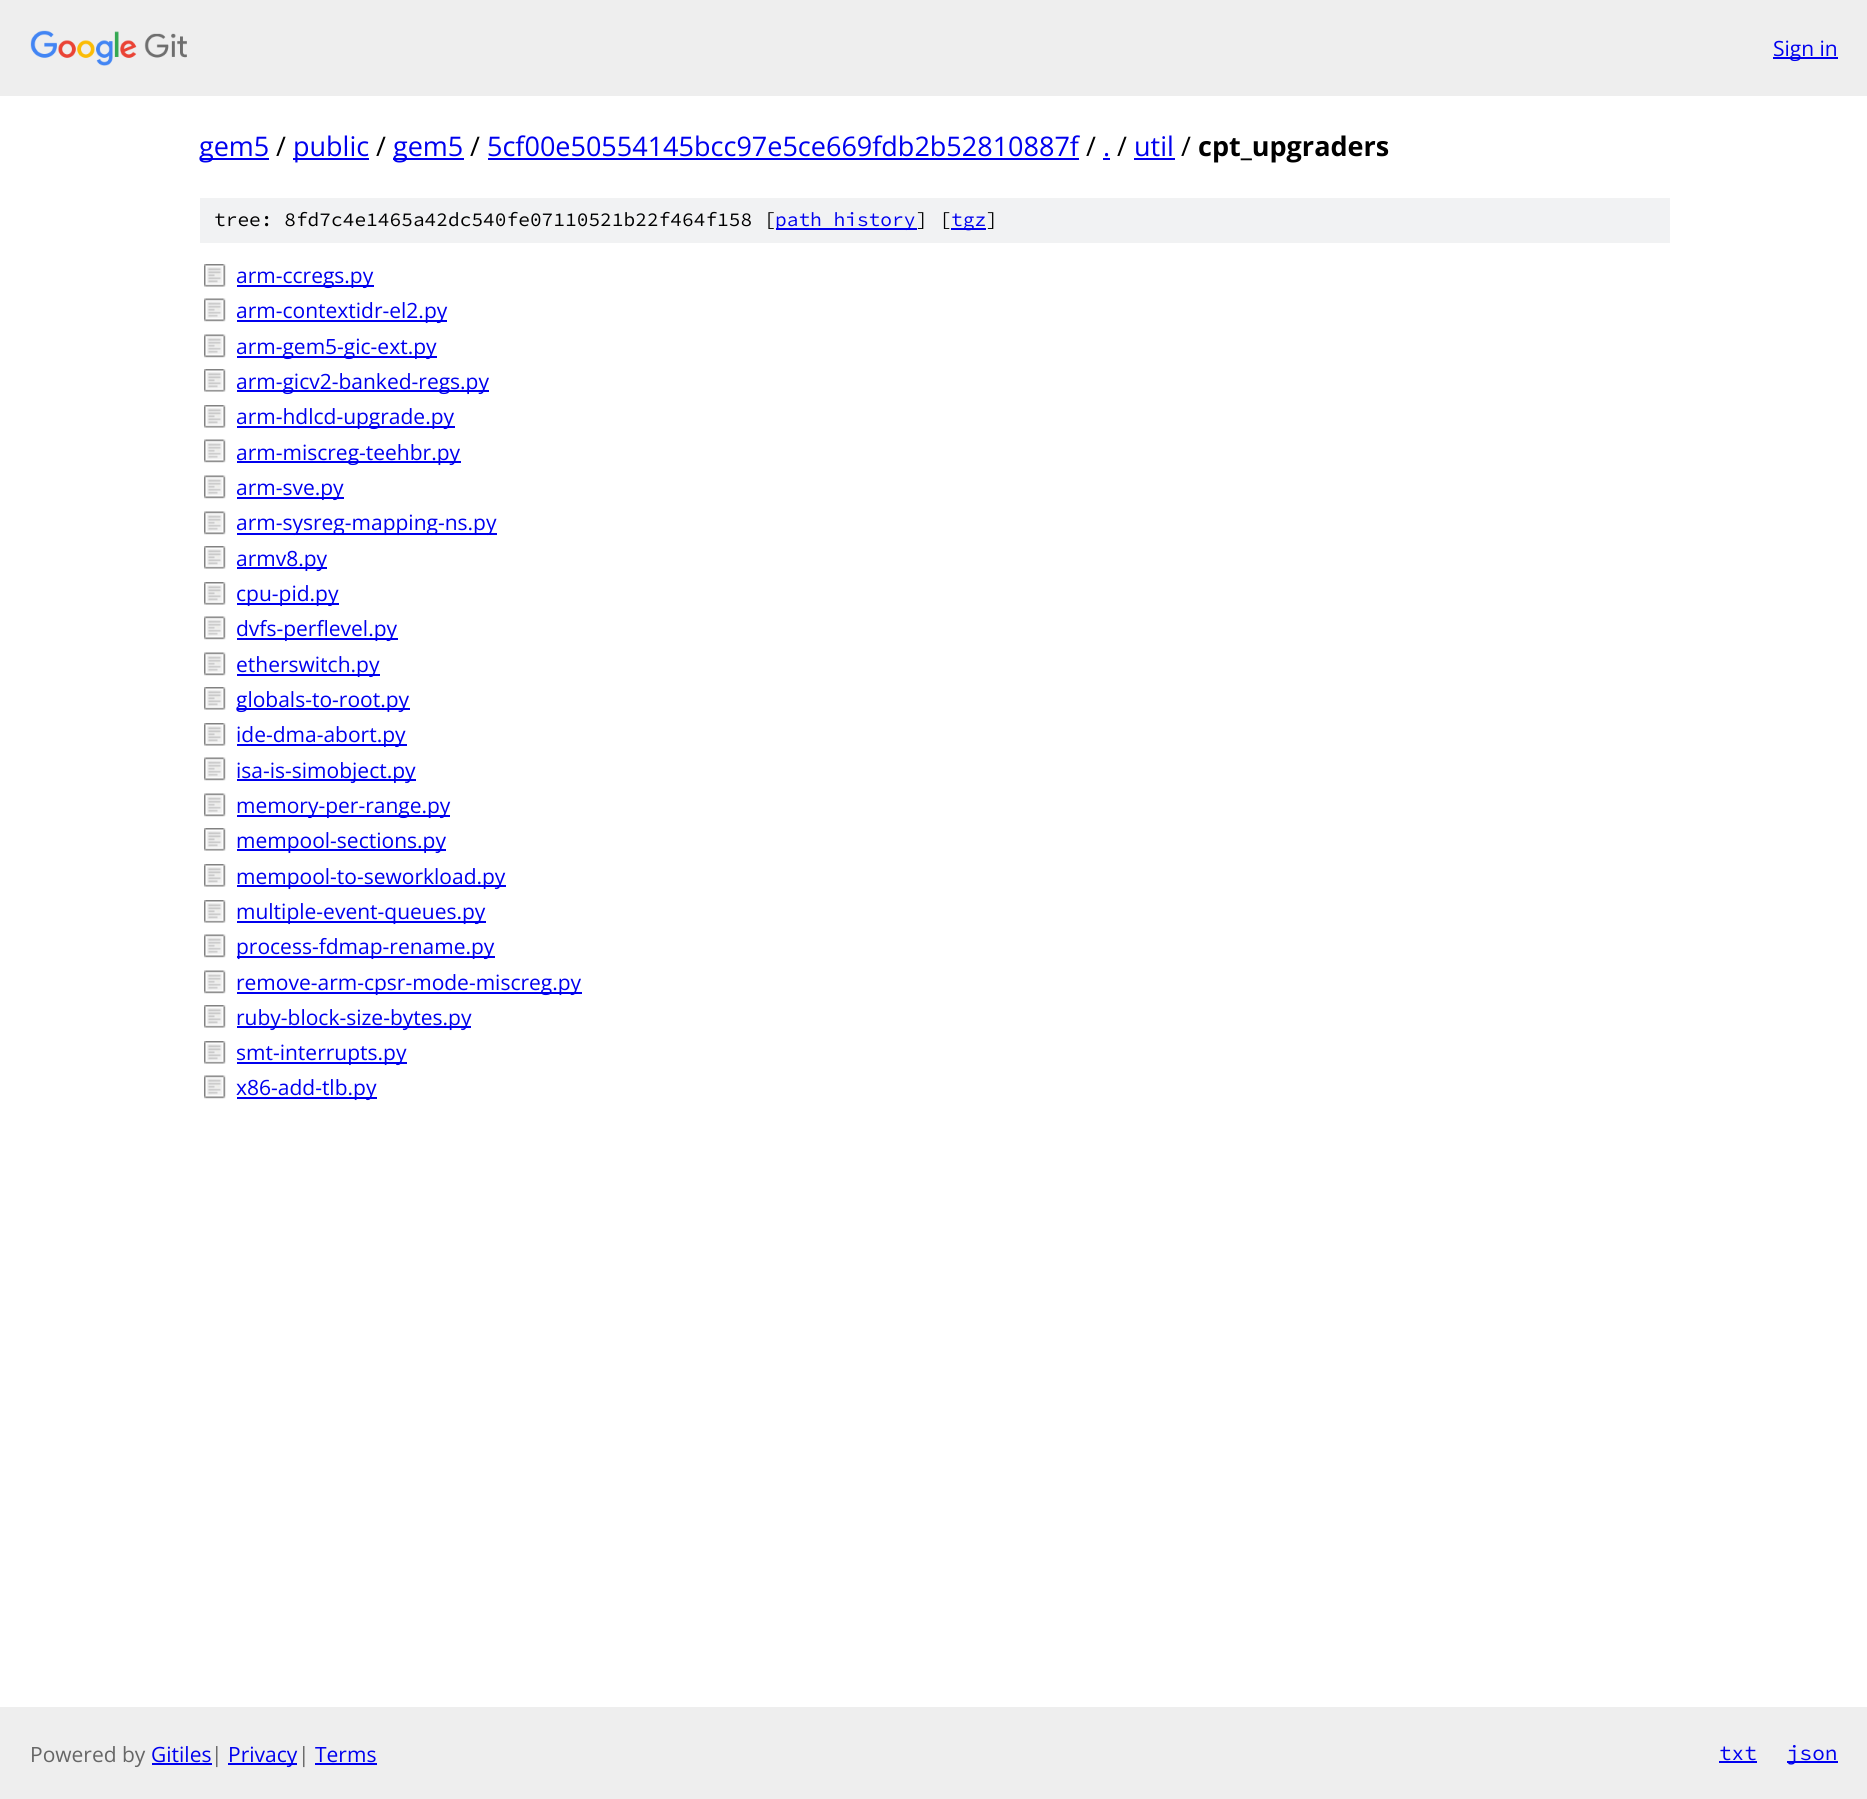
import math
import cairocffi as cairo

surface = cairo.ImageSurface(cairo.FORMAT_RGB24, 1867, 1799)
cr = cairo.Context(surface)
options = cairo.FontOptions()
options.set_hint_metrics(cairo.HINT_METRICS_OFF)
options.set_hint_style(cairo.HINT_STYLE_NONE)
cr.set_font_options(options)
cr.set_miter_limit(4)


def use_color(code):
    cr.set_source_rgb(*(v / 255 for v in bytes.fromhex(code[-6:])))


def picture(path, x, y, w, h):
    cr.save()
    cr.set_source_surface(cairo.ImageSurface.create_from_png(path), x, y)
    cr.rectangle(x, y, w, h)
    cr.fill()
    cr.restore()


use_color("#ffffff")
cr.paint()
use_color("#eeeeee")
cr.rectangle(0, 0, 1867, 96)
cr.fill()
picture("img1.png", 30, 30, 157, 36)
use_color("#0000ee")
cr.rectangle(1773, 57, 65, 2)
cr.fill()
cr.select_font_face("Open Sans")
cr.set_font_size(21)
cr.move_to(1773, 56)
cr.show_text("Sign in")
cr.rectangle(200, 158, 69, 2)
cr.fill()
cr.set_font_size(27)
cr.move_to(199, 156)
cr.show_text("gem5")
use_color("#000000")
cr.move_to(276, 156)
cr.show_text("/")
use_color("#0000ee")
cr.rectangle(293, 158, 76, 2)
cr.fill()
cr.move_to(293, 156)
cr.show_text("public")
use_color("#000000")
cr.move_to(376, 156)
cr.show_text("/")
use_color("#0000ee")
cr.rectangle(393, 158, 71, 2)
cr.fill()
cr.move_to(393, 156)
cr.show_text("gem5")
use_color("#000000")
cr.move_to(470, 156)
cr.show_text("/")
use_color("#0000ee")
cr.move_to(487, 156)
cr.show_text("5cf00e50554145bcc97e5ce669fdb2b52810887f")
cr.rectangle(488, 158, 591, 2)
cr.fill()
use_color("#000000")
cr.move_to(1086, 156)
cr.show_text("/")
use_color("#0000ee")
cr.move_to(1103, 156)
cr.show_text(".")
cr.rectangle(1103, 158, 7, 2)
cr.fill()
use_color("#000000")
cr.move_to(1117, 156)
cr.show_text("/")
use_color("#0000ee")
cr.move_to(1134, 156)
cr.show_text("util")
cr.rectangle(1134, 158, 41, 2)
cr.fill()
use_color("#000000")
cr.move_to(1181, 156)
cr.show_text("/")
cr.select_font_face("Open Sans", cairo.FONT_SLANT_NORMAL, cairo.FONT_WEIGHT_BOLD)
cr.move_to(1198, 156)
cr.show_text("cpt_upgraders")
use_color("#f1f2f3")
cr.rectangle(200, 198, 1470, 45)
cr.fill()
cr.select_font_face("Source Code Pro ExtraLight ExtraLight")
cr.set_font_size(19.5)
use_color("#000000")
cr.move_to(214, 226)
cr.show_text("tree: 8fd7c4e1465a42dc540fe07110521b22f464f158 [")
use_color("#0000ee")
cr.rectangle(776, 228, 141, 2)
cr.fill()
cr.move_to(775, 226)
cr.show_text("path history")
use_color("#000000")
cr.move_to(916, 226)
cr.show_text("] [")
use_color("#0000ee")
cr.rectangle(951, 228, 35, 2)
cr.fill()
cr.move_to(951, 226)
cr.show_text("tgz")
use_color("#000000")
cr.move_to(986, 226)
cr.show_text("]")
picture("img2.png", 204, 264, 22, 23)
use_color("#0000ee")
cr.rectangle(237, 285, 137, 2)
cr.fill()
cr.select_font_face("Open Sans")
cr.set_font_size(21)
cr.move_to(236, 283)
cr.show_text("arm-ccregs.py")
picture("img3.png", 204, 298, 22, 24)
cr.rectangle(237, 320, 210, 2)
cr.fill()
cr.move_to(236, 318)
cr.show_text("arm-contextidr-el2.py")
picture("img3.png", 204, 334, 22, 24)
cr.rectangle(237, 356, 200, 2)
cr.fill()
cr.move_to(236, 354)
cr.show_text("arm-gem5-gic-ext.py")
picture("img2.png", 204, 369, 22, 23)
cr.rectangle(237, 390, 252, 2)
cr.fill()
cr.move_to(236, 389)
cr.show_text("arm-gicv2-banked-regs.py")
picture("img2.png", 204, 405, 22, 23)
cr.rectangle(237, 426, 218, 2)
cr.fill()
cr.move_to(236, 424)
cr.show_text("arm-hdlcd-upgrade.py")
picture("img3.png", 204, 439, 22, 24)
cr.rectangle(237, 461, 224, 2)
cr.fill()
cr.move_to(236, 460)
cr.show_text("arm-miscreg-teehbr.py")
picture("img3.png", 204, 475, 22, 24)
cr.rectangle(237, 497, 107, 2)
cr.fill()
cr.move_to(236, 495)
cr.show_text("arm-sve.py")
picture("img3.png", 204, 511, 22, 24)
cr.rectangle(237, 533, 260, 2)
cr.fill()
cr.move_to(236, 530)
cr.show_text("arm-sysreg-mapping-ns.py")
picture("img2.png", 204, 546, 22, 23)
cr.rectangle(237, 567, 90, 2)
cr.fill()
cr.move_to(236, 566)
cr.show_text("armv8.py")
picture("img2.png", 204, 582, 22, 23)
cr.rectangle(237, 603, 102, 2)
cr.fill()
cr.move_to(236, 601)
cr.show_text("cpu-pid.py")
picture("img3.png", 204, 616, 22, 24)
cr.rectangle(237, 638, 161, 2)
cr.fill()
cr.move_to(236, 636)
cr.show_text("dvfs-perflevel.py")
picture("img3.png", 204, 652, 22, 24)
cr.rectangle(237, 674, 143, 2)
cr.fill()
cr.move_to(236, 672)
cr.show_text("etherswitch.py")
picture("img2.png", 204, 687, 22, 23)
cr.rectangle(237, 708, 173, 2)
cr.fill()
cr.move_to(236, 707)
cr.show_text("globals-to-root.py")
picture("img2.png", 204, 723, 22, 23)
cr.rectangle(237, 744, 170, 2)
cr.fill()
cr.move_to(236, 742)
cr.show_text("ide-dma-abort.py")
picture("img3.png", 204, 757, 22, 24)
cr.rectangle(237, 779, 179, 2)
cr.fill()
cr.move_to(236, 778)
cr.show_text("isa-is-simobject.py")
picture("img3.png", 204, 793, 22, 24)
cr.rectangle(237, 815, 213, 2)
cr.fill()
cr.move_to(236, 813)
cr.show_text("memory-per-range.py")
picture("img2.png", 204, 828, 22, 23)
cr.rectangle(237, 849, 209, 2)
cr.fill()
cr.move_to(236, 848)
cr.show_text("mempool-sections.py")
picture("img2.png", 204, 864, 22, 23)
cr.rectangle(237, 885, 269, 2)
cr.fill()
cr.move_to(236, 884)
cr.show_text("mempool-to-seworkload.py")
picture("img2.png", 204, 900, 22, 23)
cr.rectangle(237, 921, 249, 2)
cr.fill()
cr.move_to(236, 919)
cr.show_text("multiple-event-queues.py")
picture("img3.png", 204, 934, 22, 24)
cr.rectangle(237, 956, 258, 2)
cr.fill()
cr.move_to(236, 954)
cr.show_text("process-fdmap-rename.py")
picture("img3.png", 204, 970, 22, 24)
cr.rectangle(237, 992, 345, 2)
cr.fill()
cr.move_to(236, 990)
cr.show_text("remove-arm-cpsr-mode-miscreg.py")
picture("img2.png", 204, 1005, 22, 23)
cr.rectangle(237, 1026, 234, 2)
cr.fill()
cr.move_to(236, 1025)
cr.show_text("ruby-block-size-bytes.py")
picture("img2.png", 204, 1041, 22, 23)
cr.rectangle(237, 1062, 170, 2)
cr.fill()
cr.move_to(236, 1060)
cr.show_text("smt-interrupts.py")
picture("img3.png", 204, 1075, 22, 24)
cr.rectangle(237, 1097, 140, 2)
cr.fill()
cr.move_to(236, 1095)
cr.show_text("x86-add-tlb.py")
use_color("#eeeeee")
cr.rectangle(0, 1707, 1867, 92)
cr.fill()
use_color("#666666")
cr.move_to(30, 1762)
cr.show_text("Powered by")
use_color("#0000ee")
cr.move_to(151, 1762)
cr.show_text("Gitiles")
cr.rectangle(152, 1763, 60, 2)
cr.fill()
use_color("#666666")
cr.move_to(211, 1762)
cr.show_text("|")
use_color("#0000ee")
cr.rectangle(228, 1763, 69, 2)
cr.fill()
cr.move_to(228, 1762)
cr.show_text("Privacy")
use_color("#666666")
cr.move_to(298, 1762)
cr.show_text("|")
use_color("#0000ee")
cr.move_to(315, 1762)
cr.show_text("Terms")
cr.rectangle(315, 1763, 62, 2)
cr.fill()
cr.select_font_face("Source Code Pro ExtraLight ExtraLight")
cr.move_to(1719, 1760)
cr.show_text("txt")
cr.rectangle(1719, 1761, 38, 2)
cr.fill()
cr.rectangle(1787, 1761, 51, 2)
cr.fill()
cr.move_to(1787, 1760)
cr.show_text("json")
surface.write_to_png("result.png")
